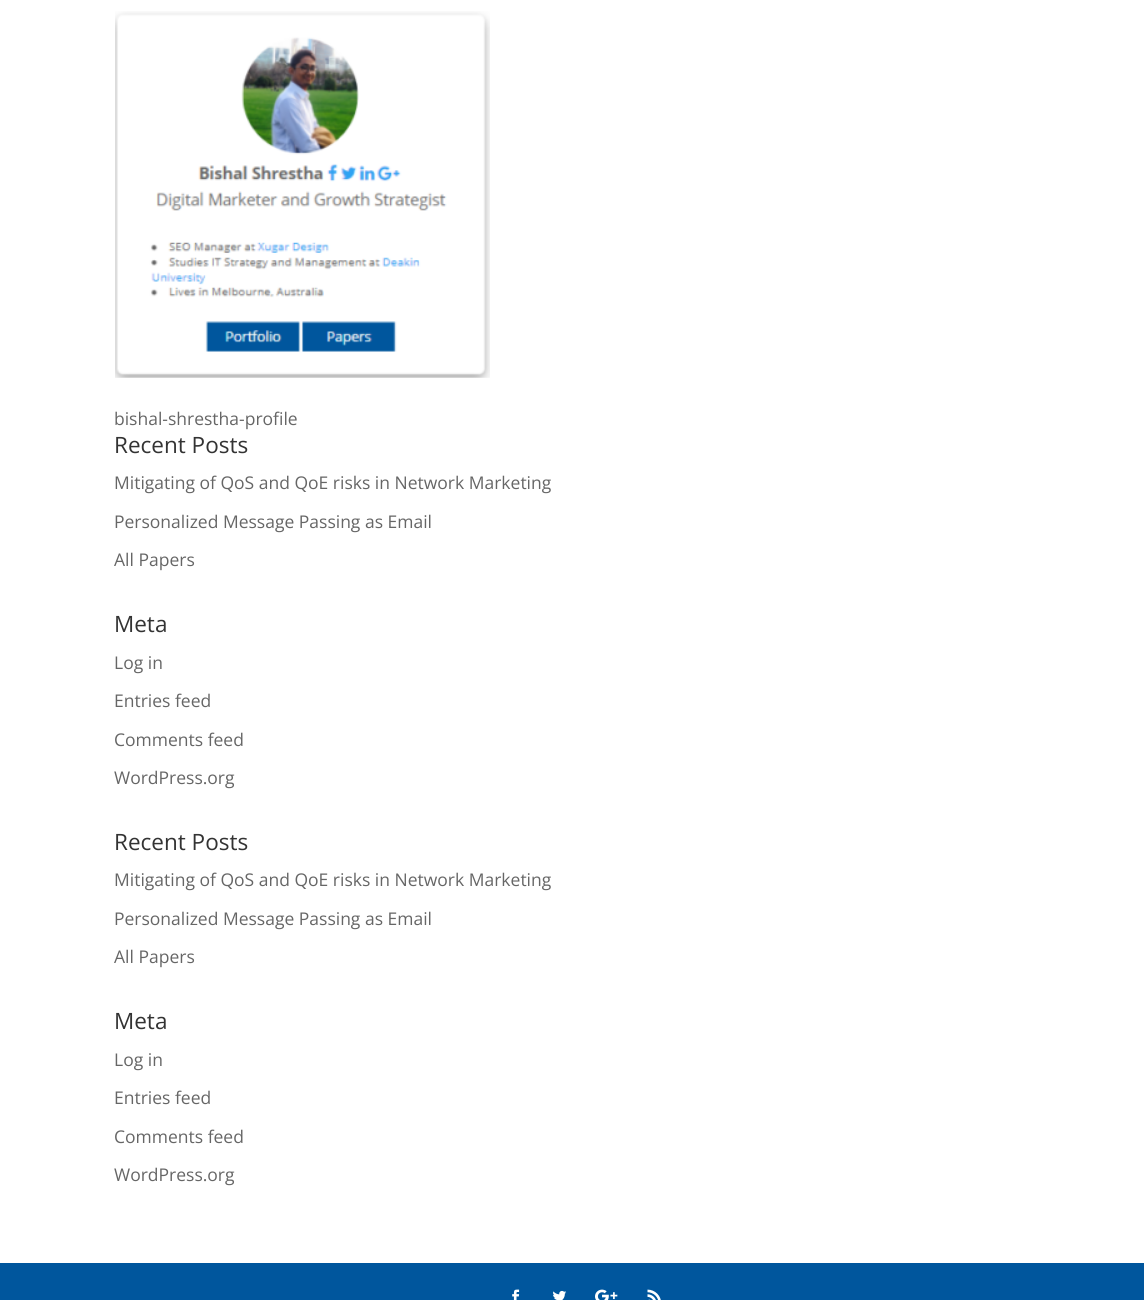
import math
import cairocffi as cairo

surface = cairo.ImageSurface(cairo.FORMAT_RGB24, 1144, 1300)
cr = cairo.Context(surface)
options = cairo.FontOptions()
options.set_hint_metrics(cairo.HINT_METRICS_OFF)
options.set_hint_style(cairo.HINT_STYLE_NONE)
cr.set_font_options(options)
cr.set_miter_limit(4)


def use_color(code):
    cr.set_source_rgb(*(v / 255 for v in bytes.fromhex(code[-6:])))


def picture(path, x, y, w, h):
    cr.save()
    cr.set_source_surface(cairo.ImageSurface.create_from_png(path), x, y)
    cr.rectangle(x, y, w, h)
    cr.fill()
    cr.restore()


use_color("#ffffff")
cr.paint()
picture("img1.png", 115, 11, 375, 367)
cr.select_font_face("Open Sans")
cr.set_font_size(17.5)
use_color("#666666")
cr.move_to(114, 425)
cr.show_text("bishal-shrestha-profile")
cr.set_font_size(22.5)
use_color("#333333")
cr.move_to(114, 453)
cr.show_text("Recent Posts")
cr.set_font_size(17.5)
use_color("#666666")
cr.move_to(114, 489)
cr.show_text("Mitigating of QoS and QoE risks in Network Marketing")
cr.move_to(114, 528)
cr.show_text("Personalized Message Passing as Email")
cr.move_to(114, 566)
cr.show_text("All Papers")
cr.set_font_size(22.5)
use_color("#333333")
cr.move_to(114, 632)
cr.show_text("Meta")
cr.set_font_size(17.5)
use_color("#666666")
cr.move_to(114, 669)
cr.show_text("Log in")
cr.move_to(114, 707)
cr.show_text("Entries feed")
cr.move_to(114, 746)
cr.show_text("Comments feed")
cr.move_to(114, 784)
cr.show_text("WordPress.org")
cr.set_font_size(22.5)
use_color("#333333")
cr.move_to(114, 850)
cr.show_text("Recent Posts")
cr.set_font_size(17.5)
use_color("#666666")
cr.move_to(114, 886)
cr.show_text("Mitigating of QoS and QoE risks in Network Marketing")
cr.move_to(114, 925)
cr.show_text("Personalized Message Passing as Email")
cr.move_to(114, 963)
cr.show_text("All Papers")
cr.set_font_size(22.5)
use_color("#333333")
cr.move_to(114, 1029)
cr.show_text("Meta")
cr.set_font_size(17.5)
use_color("#666666")
cr.move_to(114, 1066)
cr.show_text("Log in")
cr.move_to(114, 1104)
cr.show_text("Entries feed")
cr.move_to(114, 1143)
cr.show_text("Comments feed")
cr.move_to(114, 1181)
cr.show_text("WordPress.org")
use_color("#00569d")
cr.rectangle(0, 1263, 1144, 37)
cr.fill()
picture("img2.png", 512, 1289, 8, 11)
picture("img3.png", 553, 1290, 14, 10)
picture("img4.png", 595, 1289, 23, 11)
picture("img5.png", 647, 1289, 14, 11)
surface.write_to_png("result.png")
